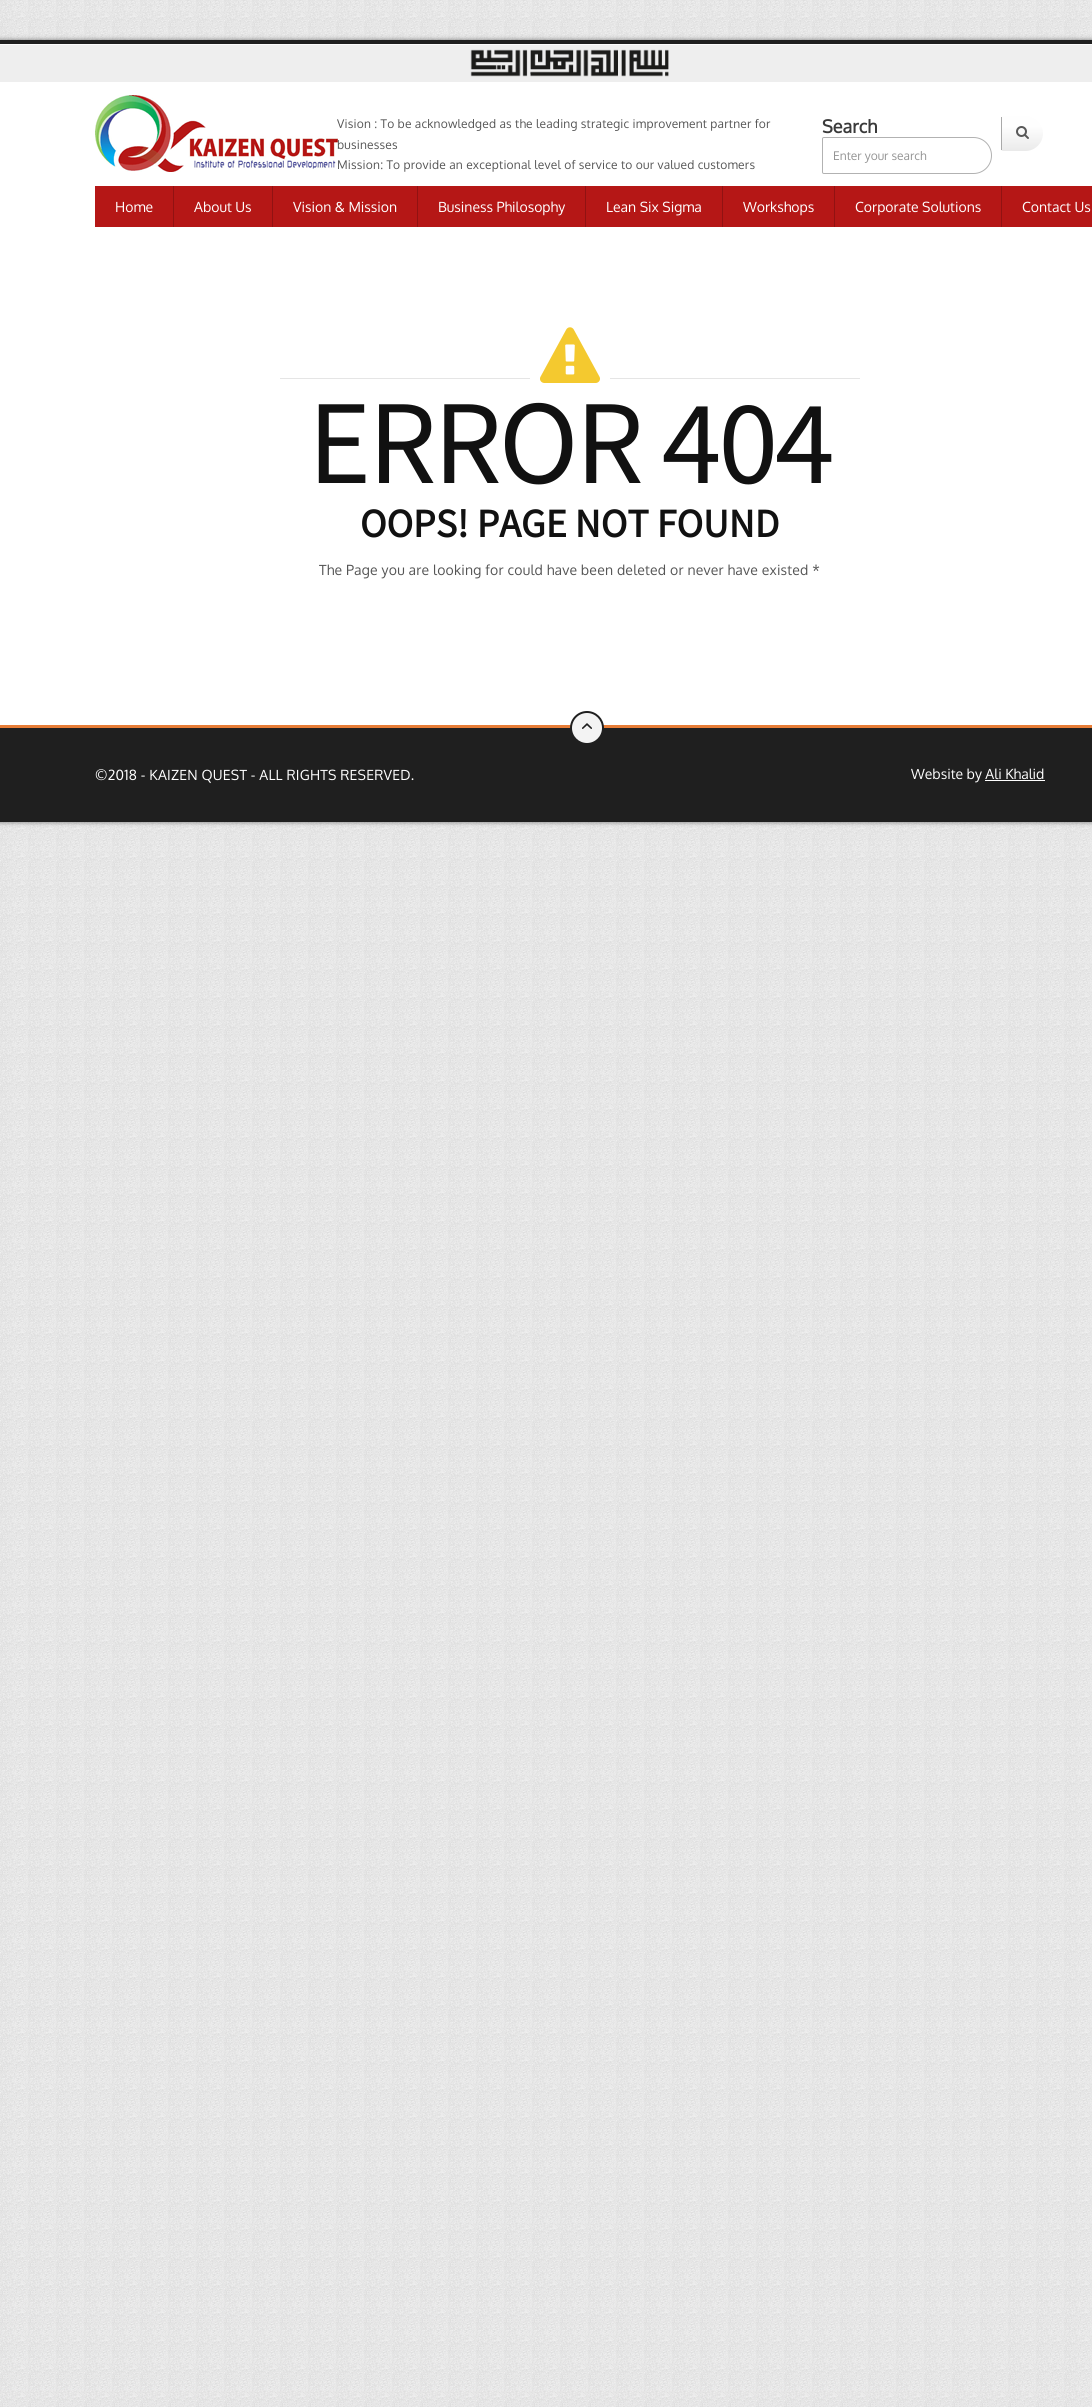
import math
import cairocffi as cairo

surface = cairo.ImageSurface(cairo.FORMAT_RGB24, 1092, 2407)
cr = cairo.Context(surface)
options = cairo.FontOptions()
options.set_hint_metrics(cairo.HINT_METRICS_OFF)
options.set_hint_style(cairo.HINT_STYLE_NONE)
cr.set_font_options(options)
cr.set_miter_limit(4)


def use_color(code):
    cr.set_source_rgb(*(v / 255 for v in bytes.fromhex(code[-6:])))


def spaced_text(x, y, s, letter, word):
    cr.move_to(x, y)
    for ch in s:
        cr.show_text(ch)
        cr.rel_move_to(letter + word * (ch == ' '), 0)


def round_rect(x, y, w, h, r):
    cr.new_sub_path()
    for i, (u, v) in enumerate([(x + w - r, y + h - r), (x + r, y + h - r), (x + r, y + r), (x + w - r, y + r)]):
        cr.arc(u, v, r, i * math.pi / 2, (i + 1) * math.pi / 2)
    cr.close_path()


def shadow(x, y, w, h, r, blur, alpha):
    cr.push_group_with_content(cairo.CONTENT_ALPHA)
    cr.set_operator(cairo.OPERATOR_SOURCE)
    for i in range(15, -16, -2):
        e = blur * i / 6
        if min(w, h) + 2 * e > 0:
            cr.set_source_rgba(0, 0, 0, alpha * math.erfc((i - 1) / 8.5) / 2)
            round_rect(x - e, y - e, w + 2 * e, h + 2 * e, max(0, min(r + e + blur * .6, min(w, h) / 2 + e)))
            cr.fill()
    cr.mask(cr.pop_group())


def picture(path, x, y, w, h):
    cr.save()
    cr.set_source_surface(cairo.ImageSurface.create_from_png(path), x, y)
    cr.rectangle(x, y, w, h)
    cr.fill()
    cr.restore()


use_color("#ffffff")
cr.paint()
picture("img1.png", 0, 0, 1092, 2407)
use_color("#000000")
shadow(0, 40, 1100, 782, 0, 2.5, 0.5)
use_color("#ffffff")
cr.rectangle(0, 82, 1092, 643)
cr.fill()
use_color("#1f1f1f")
cr.rectangle(0, 40, 1092, 4)
cr.fill()
use_color("#fcfcfc")
cr.rectangle(0, 44, 1092, 1)
cr.fill()
use_color("#eeeeee")
cr.rectangle(0, 45, 1092, 37)
cr.fill()
picture("img2.png", 470, 49, 199, 28)
picture("img3.png", 95, 95, 243, 77)
cr.select_font_face("Oxygen")
cr.set_font_size(12)
use_color("#555555")
spaced_text(337, 128, "Vision : To be acknowledged as the leading strategic improvement partner for", 0.2, 0)
spaced_text(337, 149, "businesses", 0.2, 0)
spaced_text(337, 169, "Mission: To provide an exceptional level of service to our valued customers", 0.2, 0)
cr.select_font_face("Oxygen", cairo.FONT_SLANT_NORMAL, cairo.FONT_WEIGHT_BOLD)
cr.set_font_size(18)
use_color("#3a3a3a")
cr.move_to(822, 133)
cr.show_text("Search")
gradient = cairo.LinearGradient(1023, 116, 1023, 151)
gradient.add_color_stop_rgba(0.29, 0.996, 0.996, 0.996, 1)
gradient.add_color_stop_rgba(1, 0.918, 0.918, 0.918, 1)
cr.set_source(gradient)
cr.new_path()
cr.move_to(1003, 116)
cr.line_to(1025.5, 116)
cr.curve_to(1035, 116, 1043, 124, 1043, 133.5)
cr.curve_to(1043, 143, 1035, 151, 1025.5, 151)
cr.line_to(1003, 151)
cr.curve_to(1002, 151, 1001, 150, 1001, 149)
cr.line_to(1001, 118)
cr.curve_to(1001, 117, 1002, 116, 1003, 116)
cr.close_path()
cr.fill()
use_color("#a9a9a9")
cr.rectangle(1001, 117, 1, 33)
cr.fill()
picture("img4.png", 1016, 126, 13, 13)
cr.new_path()
cr.move_to(824, 137.5)
cr.line_to(973.5, 137.5)
cr.curve_to(983.5, 137.5, 991.5, 145.5, 991.5, 155.5)
cr.curve_to(991.5, 165.5, 983.5, 173.5, 973.5, 173.5)
cr.line_to(824, 173.5)
cr.curve_to(823, 173.5, 822.5, 173, 822.5, 172)
cr.line_to(822.5, 139)
cr.curve_to(822.5, 138, 823, 137.5, 824, 137.5)
cr.close_path()
use_color("#b2b2b2")
cr.set_line_width(1)
cr.stroke()
cr.select_font_face("Oxygen")
cr.set_font_size(12)
use_color("#949494")
cr.move_to(833, 160)
cr.show_text("Enter your search")
use_color("#b51716")
cr.rectangle(95, 186, 997, 41)
cr.fill()
use_color("#911212")
cr.rectangle(173, 186, 1, 41)
cr.fill()
cr.set_font_size(14)
use_color("#ffffff")
cr.move_to(115, 212)
cr.show_text("Home")
use_color("#911212")
cr.rectangle(272, 186, 1, 41)
cr.fill()
use_color("#ffffff")
cr.move_to(194, 212)
cr.show_text("About Us")
use_color("#911212")
cr.rectangle(417, 186, 1, 41)
cr.fill()
use_color("#ffffff")
cr.move_to(293, 212)
cr.show_text("Vision & Mission")
use_color("#911212")
cr.rectangle(585, 186, 1, 41)
cr.fill()
use_color("#ffffff")
cr.move_to(438, 212)
cr.show_text("Business Philosophy")
use_color("#911212")
cr.rectangle(722, 186, 1, 41)
cr.fill()
use_color("#ffffff")
cr.move_to(606, 212)
cr.show_text("Lean Six Sigma")
use_color("#911212")
cr.rectangle(834, 186, 1, 41)
cr.fill()
use_color("#ffffff")
cr.move_to(743, 212)
cr.show_text("Workshops")
use_color("#911212")
cr.rectangle(1001, 186, 1, 41)
cr.fill()
use_color("#ffffff")
cr.move_to(855, 212)
cr.show_text("Corporate Solutions")
cr.move_to(1022, 212)
cr.show_text("Contact Us")
use_color("#e5e5e5")
cr.rectangle(280, 378, 250, 1)
cr.fill()
picture("img5.png", 540, 327, 60, 56)
cr.rectangle(610, 378, 250, 1)
cr.fill()
cr.select_font_face("Source Sans Pro")
cr.set_font_size(120)
use_color("#111111")
spaced_text(308, 483, "ERROR 404", -3, 0)
cr.select_font_face("Source Sans Pro", cairo.FONT_SLANT_NORMAL, cairo.FONT_WEIGHT_BOLD)
cr.set_font_size(40)
cr.move_to(360, 537)
cr.show_text("OOPS! PAGE NOT FOUND")
cr.select_font_face("Oxygen")
cr.set_font_size(14)
use_color("#555555")
spaced_text(319, 575, "The Page you are looking for could have been deleted or never have existed *", 0.2, 0)
use_color("#1f1f1f")
cr.rectangle(0, 728, 1092, 94)
cr.fill()
use_color("#e77d37")
cr.rectangle(0, 725, 1092, 3)
cr.fill()
use_color("#ffffff")
spaced_text(95, 780, "©2018 - KAIZEN QUEST - ALL RIGHTS RESERVED.", 0.2, 0)
use_color("#f3f3f3")
cr.new_path()
cr.arc(587, 728, 16, 0, 2 * math.pi)
cr.fill_preserve()
use_color("#1f1f1f")
cr.set_line_width(2)
cr.stroke()
picture("img6.png", 582, 723, 10, 6)
use_color("#ffffff")
cr.move_to(911, 779)
cr.show_text("Website by Ali Khalid")
cr.rectangle(985, 780, 60, 1)
cr.fill()
surface.write_to_png("result.png")
